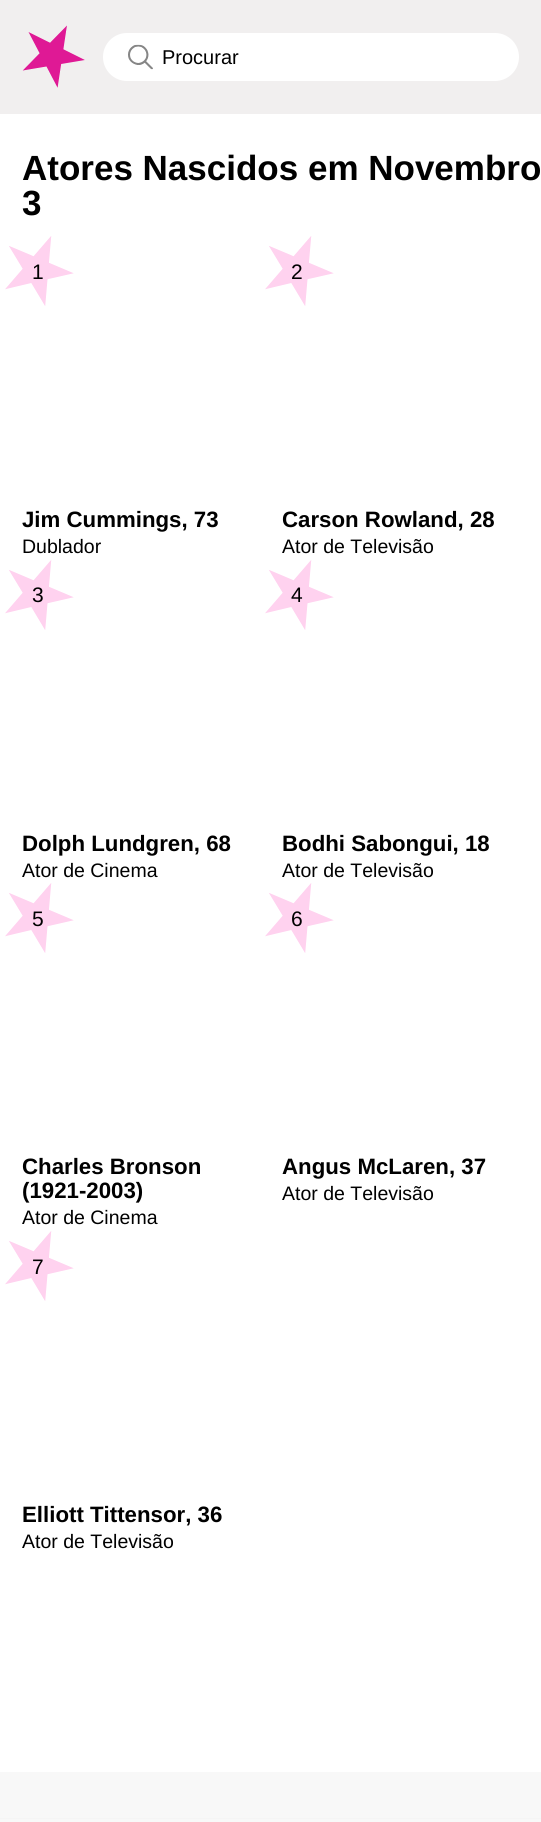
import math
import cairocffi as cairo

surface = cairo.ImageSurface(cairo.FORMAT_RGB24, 541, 1822)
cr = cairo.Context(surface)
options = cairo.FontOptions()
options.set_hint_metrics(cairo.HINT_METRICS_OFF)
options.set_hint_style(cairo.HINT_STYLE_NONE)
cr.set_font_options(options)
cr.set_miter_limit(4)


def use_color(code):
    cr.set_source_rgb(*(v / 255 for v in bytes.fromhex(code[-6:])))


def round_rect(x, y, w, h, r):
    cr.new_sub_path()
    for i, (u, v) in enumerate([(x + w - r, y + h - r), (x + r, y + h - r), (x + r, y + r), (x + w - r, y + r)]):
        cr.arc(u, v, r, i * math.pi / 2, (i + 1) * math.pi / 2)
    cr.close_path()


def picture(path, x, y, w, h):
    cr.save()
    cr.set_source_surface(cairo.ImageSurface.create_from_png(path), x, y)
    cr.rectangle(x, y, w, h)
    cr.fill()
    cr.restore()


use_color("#ffffff")
cr.paint()
use_color("#f8f8f8")
cr.rectangle(0, 1772, 541, 46)
cr.fill()
use_color("#f1efef")
cr.rectangle(0, 0, 541, 114)
cr.fill()
picture("img1.png", 22, 25, 63, 63)
use_color("#ffffff")
round_rect(104, 34, 414, 46, 23)
cr.fill_preserve()
cr.stroke()
picture("img2.png", 128, 44, 25, 26)
cr.select_font_face("Liberation Sans")
cr.set_font_size(20)
use_color("#000000")
cr.move_to(162, 64)
cr.show_text("Procurar")
cr.select_font_face("Liberation Sans", cairo.FONT_SLANT_NORMAL, cairo.FONT_WEIGHT_BOLD)
cr.set_font_size(35)
cr.move_to(22, 180)
cr.show_text("Atores Nascidos em Novembro")
cr.move_to(22, 215)
cr.show_text("3")
picture("img3.png", 5, 236, 69, 70)
cr.select_font_face("Liberation Sans")
cr.set_font_size(21)
cr.move_to(32, 279)
cr.show_text("1")
cr.select_font_face("Liberation Sans", cairo.FONT_SLANT_NORMAL, cairo.FONT_WEIGHT_BOLD)
cr.set_font_size(22.25)
cr.move_to(22, 527)
cr.show_text("Jim Cummings, 73")
cr.select_font_face("Liberation Sans")
cr.set_font_size(19.5)
cr.move_to(22, 553)
cr.show_text("Dublador")
picture("img3.png", 265, 236, 69, 70)
cr.set_font_size(21)
cr.move_to(291, 279)
cr.show_text("2")
cr.select_font_face("Liberation Sans", cairo.FONT_SLANT_NORMAL, cairo.FONT_WEIGHT_BOLD)
cr.set_font_size(22.25)
cr.move_to(282, 527)
cr.show_text("Carson Rowland, 28")
cr.select_font_face("Liberation Sans")
cr.set_font_size(19.5)
cr.move_to(282, 553)
cr.show_text("Ator de Televisão")
picture("img4.png", 5, 560, 69, 70)
cr.set_font_size(21)
cr.move_to(32, 602)
cr.show_text("3")
cr.select_font_face("Liberation Sans", cairo.FONT_SLANT_NORMAL, cairo.FONT_WEIGHT_BOLD)
cr.set_font_size(22.25)
cr.move_to(22, 851)
cr.show_text("Dolph Lundgren, 68")
cr.select_font_face("Liberation Sans")
cr.set_font_size(19.5)
cr.move_to(22, 877)
cr.show_text("Ator de Cinema")
picture("img4.png", 265, 560, 69, 70)
cr.set_font_size(21)
cr.move_to(291, 602)
cr.show_text("4")
cr.select_font_face("Liberation Sans", cairo.FONT_SLANT_NORMAL, cairo.FONT_WEIGHT_BOLD)
cr.set_font_size(22.25)
cr.move_to(282, 851)
cr.show_text("Bodhi Sabongui, 18")
cr.select_font_face("Liberation Sans")
cr.set_font_size(19.5)
cr.move_to(282, 877)
cr.show_text("Ator de Televisão")
picture("img4.png", 5, 883, 69, 70)
cr.set_font_size(21)
cr.move_to(32, 926)
cr.show_text("5")
cr.select_font_face("Liberation Sans", cairo.FONT_SLANT_NORMAL, cairo.FONT_WEIGHT_BOLD)
cr.set_font_size(22.25)
cr.move_to(22, 1174)
cr.show_text("Charles Bronson")
cr.move_to(22, 1198)
cr.show_text("(1921-2003)")
cr.select_font_face("Liberation Sans")
cr.set_font_size(19.5)
cr.move_to(22, 1224)
cr.show_text("Ator de Cinema")
picture("img4.png", 265, 883, 69, 70)
cr.set_font_size(21)
cr.move_to(291, 926)
cr.show_text("6")
cr.select_font_face("Liberation Sans", cairo.FONT_SLANT_NORMAL, cairo.FONT_WEIGHT_BOLD)
cr.set_font_size(22.25)
cr.move_to(282, 1174)
cr.show_text("Angus McLaren, 37")
cr.select_font_face("Liberation Sans")
cr.set_font_size(19.5)
cr.move_to(282, 1200)
cr.show_text("Ator de Televisão")
picture("img5.png", 5, 1231, 69, 70)
cr.set_font_size(21)
cr.move_to(32, 1274)
cr.show_text("7")
cr.select_font_face("Liberation Sans", cairo.FONT_SLANT_NORMAL, cairo.FONT_WEIGHT_BOLD)
cr.set_font_size(22.25)
cr.move_to(22, 1522)
cr.show_text("Elliott Tittensor, 36")
cr.select_font_face("Liberation Sans")
cr.set_font_size(19.5)
cr.move_to(22, 1548)
cr.show_text("Ator de Televisão")
use_color("#f8f8f8")
cr.rectangle(0, 1819, 541, 3)
cr.fill()
use_color("#f5f5f5")
cr.rectangle(0, 1818, 541, 1)
cr.fill()
surface.write_to_png("result.png")
